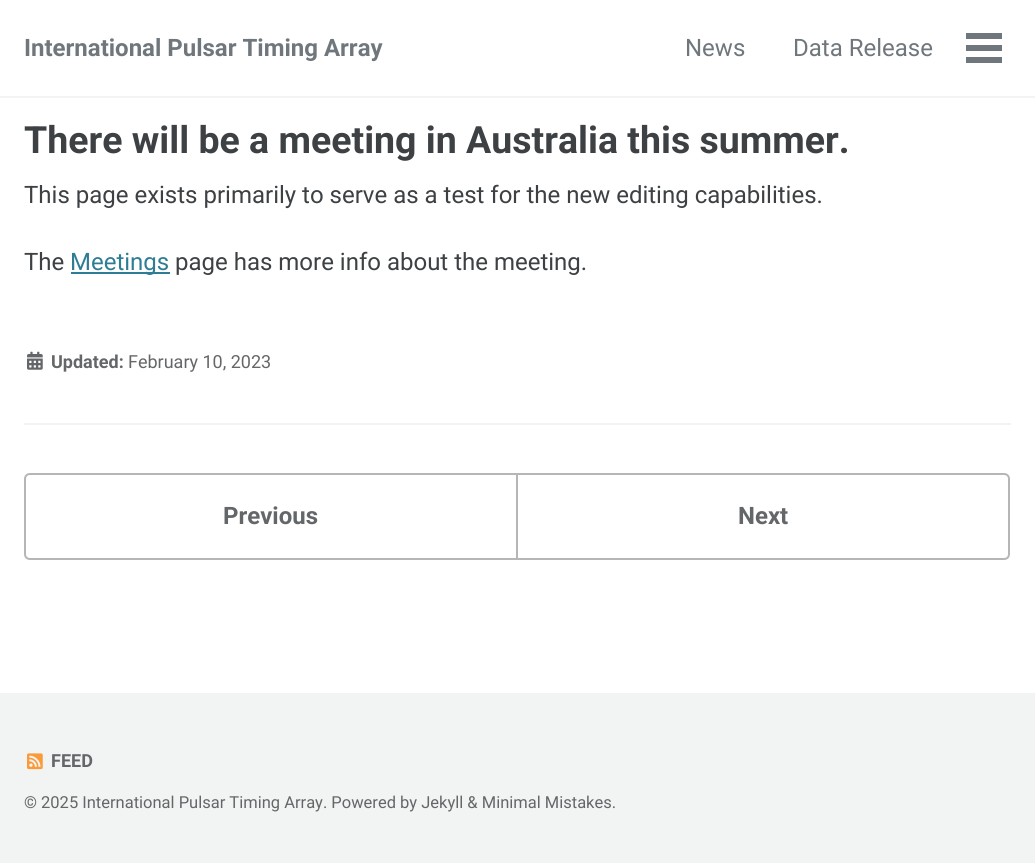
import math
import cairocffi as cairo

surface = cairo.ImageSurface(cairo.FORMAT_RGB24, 1035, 863)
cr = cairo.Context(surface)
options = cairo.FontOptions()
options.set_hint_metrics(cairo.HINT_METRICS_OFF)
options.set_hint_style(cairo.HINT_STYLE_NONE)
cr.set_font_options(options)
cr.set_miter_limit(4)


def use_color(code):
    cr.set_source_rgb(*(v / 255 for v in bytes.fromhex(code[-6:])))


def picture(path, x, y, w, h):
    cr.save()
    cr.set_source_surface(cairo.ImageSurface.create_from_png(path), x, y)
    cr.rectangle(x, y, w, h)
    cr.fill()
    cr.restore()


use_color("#ffffff")
cr.paint()
use_color("#f2f3f3")
cr.rectangle(0, 96, 1035, 2)
cr.fill()
cr.select_font_face("Roboto", cairo.FONT_SLANT_NORMAL, cairo.FONT_WEIGHT_BOLD)
cr.set_font_size(24)
use_color("#6f777d")
cr.move_to(24, 56)
cr.show_text("International Pulsar Timing Array")
cr.select_font_face("Roboto")
cr.move_to(685, 56)
cr.show_text("News")
cr.move_to(793, 56)
cr.show_text("Data Release")
cr.rectangle(966, 45, 36, 6)
cr.fill()
cr.rectangle(966, 33, 36, 6)
cr.fill()
cr.rectangle(966, 57, 36, 6)
cr.fill()
cr.select_font_face("Roboto", cairo.FONT_SLANT_NORMAL, cairo.FONT_WEIGHT_BOLD)
cr.set_font_size(37.5)
use_color("#3d4144")
cr.move_to(24, 153)
cr.show_text("There will be a meeting in Australia this summer.")
cr.select_font_face("Roboto")
cr.set_font_size(24)
cr.move_to(24, 203)
cr.show_text("This page exists primarily to serve as a test for the new editing capabilities.")
cr.move_to(24, 270)
cr.show_text("The")
use_color("#2f7d95")
cr.rectangle(71, 272, 99, 2)
cr.fill()
cr.move_to(70, 270)
cr.show_text("Meetings")
use_color("#3d4144")
cr.move_to(175, 270)
cr.show_text("page has more info about the meeting.")
picture("img1.png", 27, 351, 16, 19)
cr.select_font_face("Roboto", cairo.FONT_SLANT_NORMAL, cairo.FONT_WEIGHT_BOLD)
cr.set_font_size(18)
use_color("#646769")
cr.move_to(51, 368)
cr.show_text("Updated:")
cr.select_font_face("Roboto")
cr.move_to(128, 368)
cr.show_text("February 10, 2023")
use_color("#f2f3f3")
cr.rectangle(24, 423, 987, 2)
cr.fill()
cr.new_path()
cr.move_to(30, 474)
cr.line_to(517, 474)
cr.line_to(517, 559)
cr.line_to(30, 559)
cr.curve_to(27, 559, 25, 557, 25, 554)
cr.line_to(25, 479)
cr.curve_to(25, 476, 27, 474, 30, 474)
cr.close_path()
use_color("#b6b6b6")
cr.stroke()
cr.select_font_face("Roboto", cairo.FONT_SLANT_NORMAL, cairo.FONT_WEIGHT_BOLD)
cr.set_font_size(24)
use_color("#646769")
cr.move_to(223, 524)
cr.show_text("Previous")
cr.new_path()
cr.move_to(517, 474)
cr.line_to(1004, 474)
cr.curve_to(1007, 474, 1009, 476, 1009, 479)
cr.line_to(1009, 554)
cr.curve_to(1009, 557, 1007, 559, 1004, 559)
cr.line_to(517, 559)
cr.close_path()
use_color("#b6b6b6")
cr.stroke()
use_color("#646769")
cr.move_to(738, 524)
cr.show_text("Next")
use_color("#f2f3f3")
cr.rectangle(0, 693, 1035, 170)
cr.fill()
picture("img2.png", 27, 753, 16, 17)
cr.set_font_size(18)
use_color("#646769")
cr.move_to(51, 767)
cr.show_text("FEED")
cr.select_font_face("Roboto")
cr.set_font_size(16.5)
cr.move_to(24, 808)
cr.show_text("© 2025 International Pulsar Timing Array. Powered by Jekyll & Minimal Mistakes.")
surface.write_to_png("result.png")
